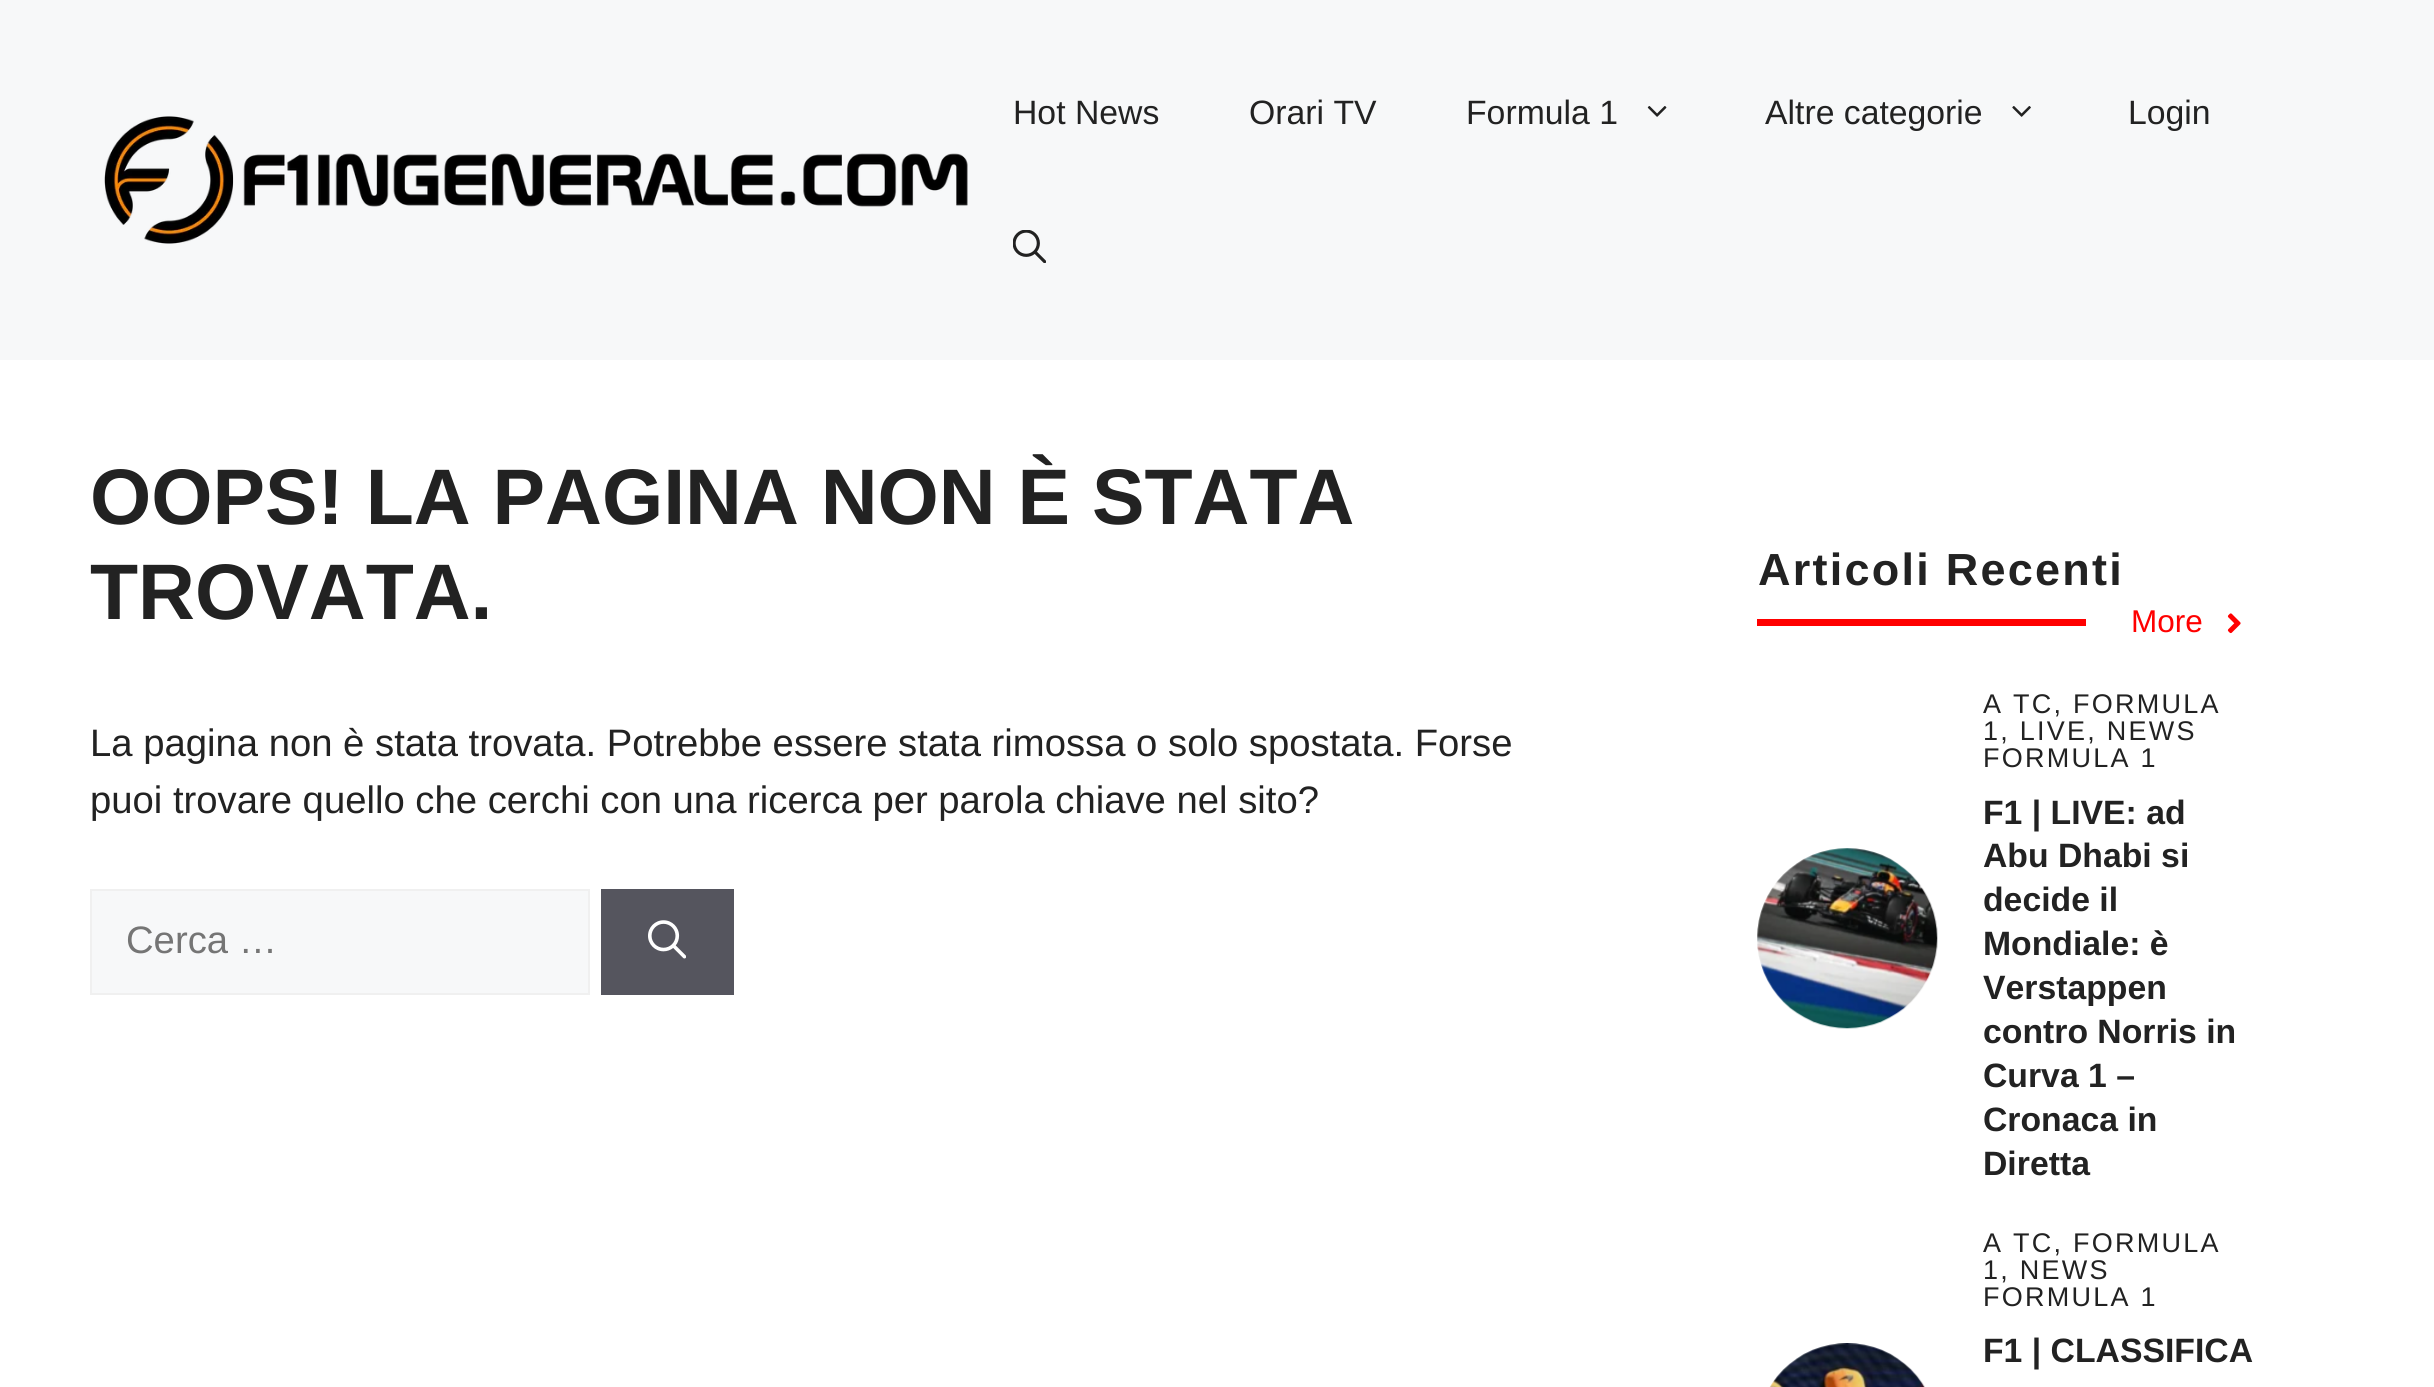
import math
import cairocffi as cairo

surface = cairo.ImageSurface(cairo.FORMAT_RGB24, 2434, 1387)
cr = cairo.Context(surface)
options = cairo.FontOptions()
options.set_hint_metrics(cairo.HINT_METRICS_OFF)
options.set_hint_style(cairo.HINT_STYLE_NONE)
cr.set_font_options(options)
cr.set_miter_limit(4)


def use_color(code):
    cr.set_source_rgb(*(v / 255 for v in bytes.fromhex(code[-6:])))


def spaced_text(x, y, s, letter, word):
    cr.move_to(x, y)
    for ch in s:
        cr.show_text(ch)
        cr.rel_move_to(letter + word * (ch == ' '), 0)


def picture(path, x, y, w, h):
    cr.save()
    cr.set_source_surface(cairo.ImageSurface.create_from_png(path), x, y)
    cr.rectangle(x, y, w, h)
    cr.fill()
    cr.restore()


use_color("#ffffff")
cr.paint()
use_color("#f7f8f9")
cr.rectangle(0, 0, 2434, 360)
cr.fill()
picture("img1.png", 104, 116, 864, 128)
cr.select_font_face("Liberation Sans")
cr.set_font_size(33.75)
use_color("#222222")
cr.move_to(1013, 124)
cr.show_text("Hot News")
cr.move_to(1249, 124)
cr.show_text("Orari TV")
cr.move_to(1466, 124)
cr.show_text("Formula 1")
picture("img2.png", 1647, 106, 20, 11)
cr.move_to(1765, 124)
cr.show_text("Altre categorie")
picture("img3.png", 2012, 106, 19, 11)
cr.move_to(2128, 124)
cr.show_text("Login")
picture("img4.png", 1013, 230, 33, 33)
cr.select_font_face("Liberation Sans", cairo.FONT_SLANT_NORMAL, cairo.FONT_WEIGHT_BOLD)
cr.set_font_size(78.75)
cr.move_to(90, 524)
cr.show_text("OOPS! LA PAGINA NON È STATA")
cr.move_to(90, 619)
cr.show_text("TROVATA.")
cr.select_font_face("Liberation Sans")
cr.set_font_size(38.25)
cr.move_to(90, 756)
cr.show_text("La pagina non è stata trovata. Potrebbe essere stata rimossa o solo spostata. Forse")
cr.move_to(90, 813)
cr.show_text("puoi trovare quello che cerchi con una ricerca per parola chiave nel sito?")
use_color("#f7f8f9")
cr.rectangle(91, 890, 498, 104)
cr.fill_preserve()
use_color("#f0f0f0")
cr.stroke()
use_color("#757575")
cr.move_to(126, 953)
cr.show_text("Cerca …")
use_color("#55555e")
cr.rectangle(601, 889, 133, 106)
cr.fill()
picture("img5.png", 648, 920, 38, 39)
cr.select_font_face("Liberation Sans", cairo.FONT_SLANT_NORMAL, cairo.FONT_WEIGHT_BOLD)
cr.set_font_size(45)
use_color("#222222")
spaced_text(1758, 585, "Articoli Recenti", 2.25, 0)
use_color("#ff0000")
cr.rectangle(1757, 619, 329, 7)
cr.fill()
cr.select_font_face("Liberation Sans")
cr.set_font_size(31.5)
cr.move_to(2131, 632)
cr.show_text("More")
picture("img6.png", 2227, 613, 14, 21)
picture("img7.png", 1757, 848, 181, 181)
cr.set_font_size(27)
use_color("#222222")
spaced_text(1983, 713, "A TC, FORMULA", 2.25, 0)
spaced_text(1983, 740, "1, LIVE, NEWS", 2.25, 0)
spaced_text(1983, 767, "FORMULA 1", 2.25, 0)
cr.select_font_face("Liberation Sans", cairo.FONT_SLANT_NORMAL, cairo.FONT_WEIGHT_BOLD)
cr.set_font_size(33.75)
cr.move_to(1983, 824)
cr.show_text("F1 | LIVE: ad")
cr.move_to(1983, 867)
cr.show_text("Abu Dhabi si")
cr.move_to(1983, 911)
cr.show_text("decide il")
cr.move_to(1983, 955)
cr.show_text("Mondiale: è")
cr.move_to(1983, 999)
cr.show_text("Verstappen")
cr.move_to(1983, 1043)
cr.show_text("contro Norris in")
cr.move_to(1983, 1087)
cr.show_text("Curva 1 –")
cr.move_to(1983, 1131)
cr.show_text("Cronaca in")
cr.move_to(1983, 1175)
cr.show_text("Diretta")
picture("img8.png", 1769, 1343, 156, 44)
cr.select_font_face("Liberation Sans")
cr.set_font_size(27)
spaced_text(1983, 1252, "A TC, FORMULA", 2.25, 0)
spaced_text(1983, 1279, "1, NEWS", 2.25, 0)
spaced_text(1983, 1306, "FORMULA 1", 2.25, 0)
cr.select_font_face("Liberation Sans", cairo.FONT_SLANT_NORMAL, cairo.FONT_WEIGHT_BOLD)
cr.set_font_size(33.75)
cr.move_to(1983, 1362)
cr.show_text("F1 | CLASSIFICA")
surface.write_to_png("result.png")
